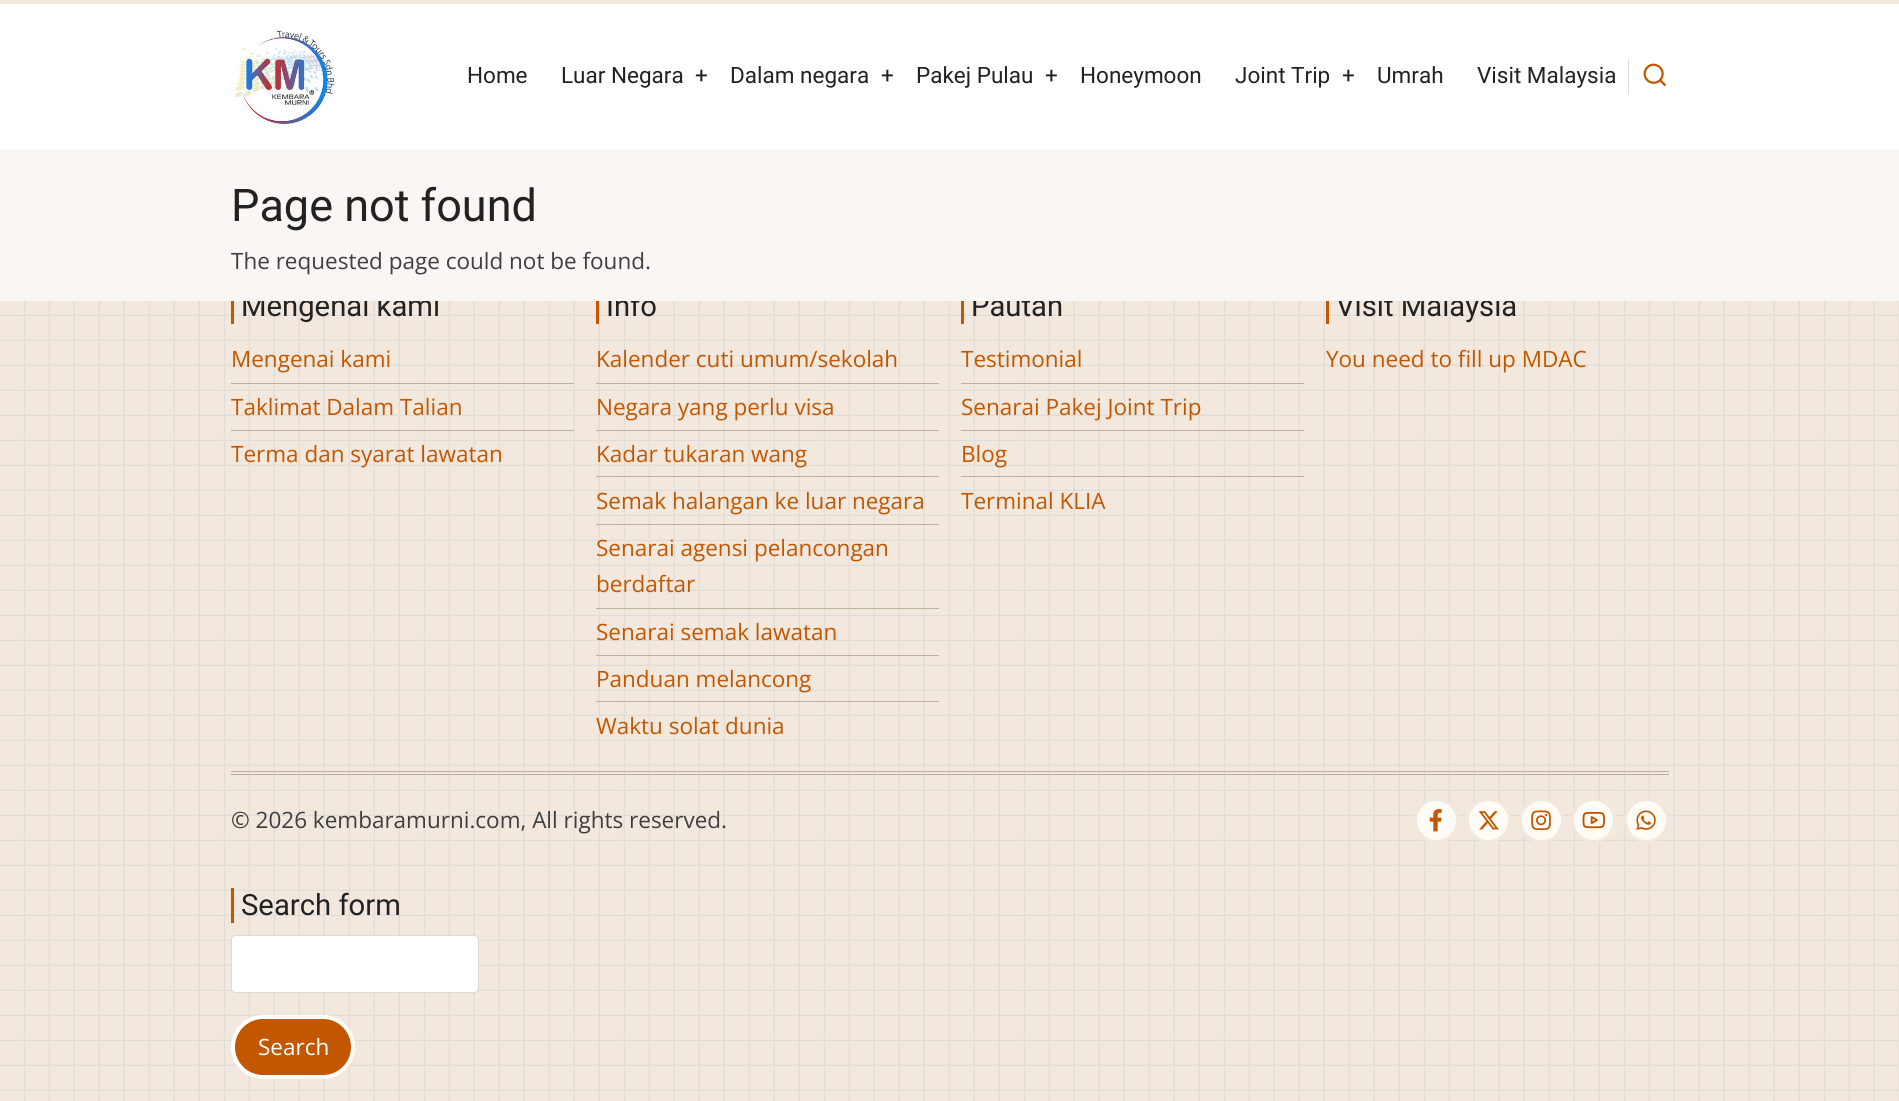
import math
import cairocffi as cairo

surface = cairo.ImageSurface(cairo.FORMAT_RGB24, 1899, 1101)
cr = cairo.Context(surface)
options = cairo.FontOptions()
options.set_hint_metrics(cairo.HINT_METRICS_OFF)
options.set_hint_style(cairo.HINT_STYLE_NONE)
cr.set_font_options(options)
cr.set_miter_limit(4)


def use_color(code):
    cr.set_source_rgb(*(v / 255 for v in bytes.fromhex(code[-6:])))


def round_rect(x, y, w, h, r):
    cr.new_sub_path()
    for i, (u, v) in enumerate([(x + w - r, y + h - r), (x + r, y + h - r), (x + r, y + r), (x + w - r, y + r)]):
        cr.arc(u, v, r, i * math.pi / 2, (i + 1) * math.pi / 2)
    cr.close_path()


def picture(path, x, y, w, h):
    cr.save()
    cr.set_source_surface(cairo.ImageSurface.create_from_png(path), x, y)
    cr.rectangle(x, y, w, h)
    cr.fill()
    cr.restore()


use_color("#f2e8dd")
cr.paint()
use_color("#ffffff")
cr.rectangle(0, 4, 1899, 145)
cr.fill()
picture("img1.png", 235, 30, 100, 95)
cr.select_font_face("Roboto")
cr.set_font_size(22.5)
use_color("#222222")
cr.move_to(467, 83)
cr.show_text("Home")
cr.move_to(561, 83)
cr.show_text("Luar Negara")
cr.move_to(695, 83)
cr.show_text("+")
cr.move_to(730, 83)
cr.show_text("Dalam negara")
cr.move_to(881, 83)
cr.show_text("+")
cr.move_to(916, 83)
cr.show_text("Pakej Pulau")
cr.move_to(1045, 83)
cr.show_text("+")
cr.move_to(1080, 83)
cr.show_text("Honeymoon")
cr.move_to(1235, 83)
cr.show_text("Joint Trip")
cr.move_to(1342, 83)
cr.show_text("+")
cr.move_to(1377, 83)
cr.show_text("Umrah")
cr.move_to(1477, 83)
cr.show_text("Visit Malaysia")
use_color("#dbdbd3")
cr.rectangle(1628, 59, 1, 35)
cr.fill()
picture("img2.png", 1643, 63, 23, 24)
picture("img3.png", 0, 301, 1899, 800)
cr.set_font_size(29.25)
use_color("#222222")
cr.move_to(241, 316)
cr.show_text("Mengenai kami")
cr.move_to(606, 316)
cr.show_text("Info")
cr.move_to(971, 316)
cr.show_text("Pautan")
cr.move_to(1336, 316)
cr.show_text("Visit Malaysia")
use_color("#f9f6f3")
cr.rectangle(0, 149, 1899, 152)
cr.fill()
cr.set_font_size(45)
use_color("#222222")
cr.move_to(231, 221)
cr.show_text("Page not found")
cr.select_font_face("Open Sans")
cr.set_font_size(22.5)
use_color("#3f3f3f")
cr.move_to(231, 269)
cr.show_text("The requested page could not be found.")
use_color("#c25700")
cr.rectangle(231, 301, 3, 23)
cr.fill()
use_color("#bbb0a1")
cr.rectangle(231, 383, 343, 1)
cr.fill()
use_color("#c25700")
cr.move_to(231, 367)
cr.show_text("Mengenai kami")
use_color("#bbb0a1")
cr.rectangle(231, 430, 343, 1)
cr.fill()
use_color("#c25700")
cr.move_to(231, 415)
cr.show_text("Taklimat Dalam Talian")
cr.move_to(231, 462)
cr.show_text("Terma dan syarat lawatan")
cr.rectangle(596, 301, 3, 23)
cr.fill()
use_color("#bbb0a1")
cr.rectangle(596, 383, 343, 1)
cr.fill()
use_color("#c25700")
cr.move_to(596, 367)
cr.show_text("Kalender cuti umum/sekolah")
use_color("#bbb0a1")
cr.rectangle(596, 430, 343, 1)
cr.fill()
use_color("#c25700")
cr.move_to(596, 415)
cr.show_text("Negara yang perlu visa")
use_color("#bbb0a1")
cr.rectangle(596, 476, 343, 1)
cr.fill()
use_color("#c25700")
cr.move_to(596, 462)
cr.show_text("Kadar tukaran wang")
use_color("#bbb0a1")
cr.rectangle(596, 524, 343, 1)
cr.fill()
use_color("#c25700")
cr.move_to(596, 509)
cr.show_text("Semak halangan ke luar negara")
use_color("#bbb0a1")
cr.rectangle(596, 608, 343, 1)
cr.fill()
use_color("#c25700")
cr.move_to(596, 556)
cr.show_text("Senarai agensi pelancongan")
cr.move_to(596, 592)
cr.show_text("berdaftar")
use_color("#bbb0a1")
cr.rectangle(596, 655, 343, 1)
cr.fill()
use_color("#c25700")
cr.move_to(596, 640)
cr.show_text("Senarai semak lawatan")
use_color("#bbb0a1")
cr.rectangle(596, 701, 343, 1)
cr.fill()
use_color("#c25700")
cr.move_to(596, 687)
cr.show_text("Panduan melancong")
cr.move_to(596, 734)
cr.show_text("Waktu solat dunia")
cr.rectangle(961, 301, 3, 23)
cr.fill()
use_color("#bbb0a1")
cr.rectangle(961, 383, 343, 1)
cr.fill()
use_color("#c25700")
cr.move_to(961, 367)
cr.show_text("Testimonial")
use_color("#bbb0a1")
cr.rectangle(961, 430, 343, 1)
cr.fill()
use_color("#c25700")
cr.move_to(961, 415)
cr.show_text("Senarai Pakej Joint Trip")
use_color("#bbb0a1")
cr.rectangle(961, 476, 343, 1)
cr.fill()
use_color("#c25700")
cr.move_to(961, 462)
cr.show_text("Blog")
cr.move_to(961, 509)
cr.show_text("Terminal KLIA")
cr.rectangle(1326, 301, 3, 23)
cr.fill()
cr.move_to(1326, 367)
cr.show_text("You need to fill up MDAC")
use_color("#bbb0a1")
cr.rectangle(231, 771, 1438, 1)
cr.fill()
cr.rectangle(231, 774, 1438, 1)
cr.fill()
use_color("#3f3f3f")
cr.move_to(231, 828)
cr.show_text("© 2026 kembaramurni.com, All rights reserved.")
use_color("#fffbf6")
cr.new_path()
cr.arc(1436.5, 820.5, 21, 0, 2 * math.pi)
cr.fill_preserve()
use_color("#f2e8dd")
cr.set_line_width(3)
cr.stroke()
picture("img4.png", 1429, 809, 13, 23)
use_color("#fffbf6")
cr.arc(1488.5, 820.5, 21, 0, 2 * math.pi)
cr.fill_preserve()
use_color("#f2e8dd")
cr.stroke()
picture("img5.png", 1478, 811, 21, 19)
use_color("#fffbf6")
cr.arc(1541.5, 820.5, 21, 0, 2 * math.pi)
cr.fill_preserve()
use_color("#f2e8dd")
cr.stroke()
picture("img6.png", 1531, 810, 20, 20)
use_color("#fffbf6")
cr.arc(1593.5, 820.5, 21, 0, 2 * math.pi)
cr.fill_preserve()
use_color("#f2e8dd")
cr.stroke()
picture("img7.png", 1582, 811, 23, 18)
use_color("#fffbf6")
cr.arc(1646.5, 820.5, 21, 0, 2 * math.pi)
cr.fill_preserve()
use_color("#f2e8dd")
cr.stroke()
picture("img8.png", 1636, 810, 20, 20)
use_color("#c25700")
cr.rectangle(231, 888, 3, 35)
cr.fill()
cr.select_font_face("Roboto")
cr.set_font_size(29.25)
use_color("#222222")
cr.move_to(241, 915)
cr.show_text("Search form")
use_color("#ffffff")
round_rect(231.5, 935.5, 247, 57, 4.5)
cr.fill_preserve()
use_color("#dbdbd3")
cr.set_line_width(1)
cr.stroke()
use_color("#c25700")
round_rect(233, 1017, 120, 60, 30)
cr.fill_preserve()
use_color("#ffffff")
cr.set_line_width(4)
cr.stroke()
cr.select_font_face("Open Sans")
cr.set_font_size(22.5)
cr.move_to(258, 1055)
cr.show_text("Search")
surface.write_to_png("result.png")
